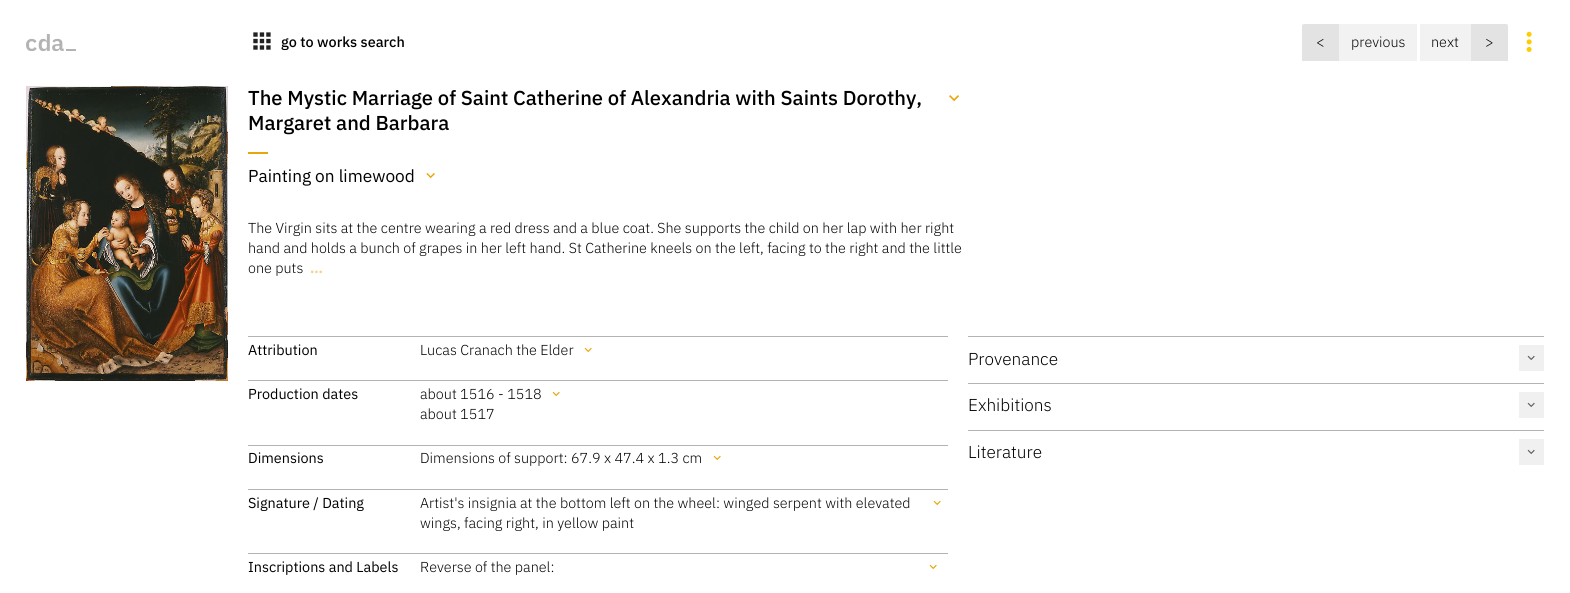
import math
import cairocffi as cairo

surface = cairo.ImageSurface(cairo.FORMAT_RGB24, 1570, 593)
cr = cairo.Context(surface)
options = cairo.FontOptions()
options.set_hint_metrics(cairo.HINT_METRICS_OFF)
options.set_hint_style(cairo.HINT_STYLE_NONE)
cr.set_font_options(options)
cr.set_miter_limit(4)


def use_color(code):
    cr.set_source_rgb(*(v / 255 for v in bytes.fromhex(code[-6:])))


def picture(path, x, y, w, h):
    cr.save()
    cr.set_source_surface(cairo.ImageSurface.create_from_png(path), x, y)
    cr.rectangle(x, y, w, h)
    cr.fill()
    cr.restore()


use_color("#ffffff")
cr.paint()
picture("img1.png", 26, 34, 50, 17)
picture("img2.png", 253, 32, 18, 18)
cr.select_font_face("IBM Plex Sans Medium")
cr.set_font_size(14.4)
use_color("#000000")
cr.move_to(281, 47)
cr.show_text("go to works search")
use_color("#f2f2f2")
cr.new_path()
cr.move_to(1304, 24)
cr.line_to(1417, 24)
cr.line_to(1417, 63)
cr.line_to(1304, 63)
cr.curve_to(1303, 63, 1302, 62, 1302, 61)
cr.line_to(1302, 26)
cr.curve_to(1302, 25, 1303, 24, 1304, 24)
cr.close_path()
cr.fill()
use_color("#ffffff")
cr.new_path()
cr.move_to(1302, 61)
cr.line_to(1417, 61)
cr.line_to(1417, 63)
cr.line_to(1304, 63)
cr.curve_to(1303, 63, 1302, 62, 1302, 61)
cr.close_path()
cr.fill()
use_color("#e3e3e3")
cr.new_path()
cr.move_to(1304, 24)
cr.line_to(1339, 24)
cr.line_to(1339, 61)
cr.line_to(1302, 61)
cr.line_to(1302, 26)
cr.curve_to(1302, 25, 1303, 24, 1304, 24)
cr.close_path()
cr.fill()
cr.select_font_face("IBM Plex Sans Light")
use_color("#000000")
cr.move_to(1316, 47)
cr.show_text("<")
cr.move_to(1351, 47)
cr.show_text("previous")
use_color("#f2f2f2")
cr.new_path()
cr.move_to(1420, 24)
cr.line_to(1506, 24)
cr.curve_to(1507, 24, 1508, 25, 1508, 26)
cr.line_to(1508, 61)
cr.curve_to(1508, 62, 1507, 63, 1506, 63)
cr.line_to(1420, 63)
cr.close_path()
cr.fill()
use_color("#ffffff")
cr.new_path()
cr.move_to(1420, 61)
cr.line_to(1508, 61)
cr.curve_to(1508, 62, 1507, 63, 1506, 63)
cr.line_to(1420, 63)
cr.close_path()
cr.fill()
use_color("#000000")
cr.move_to(1431, 47)
cr.show_text("next")
use_color("#e3e3e3")
cr.new_path()
cr.move_to(1471, 24)
cr.line_to(1506, 24)
cr.curve_to(1507, 24, 1508, 25, 1508, 26)
cr.line_to(1508, 61)
cr.line_to(1471, 61)
cr.close_path()
cr.fill()
use_color("#000000")
cr.move_to(1485, 47)
cr.show_text(">")
picture("img3.png", 1526, 31, 6, 21)
picture("img4.png", 26, 86, 202, 295)
cr.select_font_face("IBM Plex Sans Medium")
cr.set_font_size(20.15)
cr.move_to(248, 105)
cr.show_text("The Mystic Marriage of Saint Catherine of Alexandria with Saints Dorothy,")
picture("img5.png", 949, 95, 10, 7)
cr.move_to(248, 130)
cr.show_text("Margaret and Barbara")
use_color("#e8a60c")
cr.rectangle(248, 152, 20, 2)
cr.fill()
cr.select_font_face("IBM Plex Sans")
cr.set_font_size(17.25)
use_color("#000000")
cr.move_to(248, 182)
cr.show_text("Painting on limewood")
picture("img6.png", 426, 173, 9, 6)
cr.select_font_face("IBM Plex Sans Light")
cr.set_font_size(14.4)
cr.move_to(248, 233)
cr.show_text("The Virgin sits at the centre wearing a red dress and a blue coat. She supports the child on her lap with her right")
cr.move_to(248, 253)
cr.show_text("hand and holds a bunch of grapes in her left hand. St Catherine kneels on the left, facing to the right and the little")
cr.move_to(248, 273)
cr.show_text("one puts")
cr.select_font_face("IBM Plex Sans", cairo.FONT_SLANT_NORMAL, cairo.FONT_WEIGHT_BOLD)
use_color("#f4d386")
cr.move_to(310, 273)
cr.show_text("…")
use_color("#b3b3b3")
cr.rectangle(248, 336, 700, 1)
cr.fill()
cr.select_font_face("IBM Plex Sans")
use_color("#000000")
cr.move_to(248, 355)
cr.show_text("Attribution")
cr.select_font_face("IBM Plex Sans Light")
cr.move_to(420, 355)
cr.show_text("Lucas Cranach the Elder")
picture("img7.png", 584, 347, 8, 6)
use_color("#b3b3b3")
cr.rectangle(248, 380, 700, 1)
cr.fill()
cr.select_font_face("IBM Plex Sans")
use_color("#000000")
cr.move_to(248, 399)
cr.show_text("Production dates")
cr.select_font_face("IBM Plex Sans Light")
cr.move_to(420, 399)
cr.show_text("about 1516 - 1518")
picture("img7.png", 552, 391, 8, 6)
cr.move_to(420, 419)
cr.show_text("about 1517")
use_color("#b3b3b3")
cr.rectangle(248, 445, 700, 1)
cr.fill()
cr.select_font_face("IBM Plex Sans")
use_color("#000000")
cr.move_to(248, 463)
cr.show_text("Dimensions")
cr.select_font_face("IBM Plex Sans Light")
cr.move_to(420, 463)
cr.show_text("Dimensions of support: 67.9 x 47.4 x 1.3 cm")
picture("img7.png", 713, 455, 8, 6)
use_color("#b3b3b3")
cr.rectangle(248, 489, 700, 1)
cr.fill()
cr.select_font_face("IBM Plex Sans")
use_color("#000000")
cr.move_to(248, 508)
cr.show_text("Signature / Dating")
cr.select_font_face("IBM Plex Sans Light")
cr.move_to(420, 508)
cr.show_text("Artist's insignia at the bottom left on the wheel: winged serpent with elevated")
cr.move_to(420, 528)
cr.show_text("wings, facing right, in yellow paint")
picture("img7.png", 933, 500, 8, 6)
use_color("#b3b3b3")
cr.rectangle(248, 553, 700, 1)
cr.fill()
cr.select_font_face("IBM Plex Sans")
use_color("#000000")
cr.move_to(248, 572)
cr.show_text("Inscriptions and Labels")
cr.select_font_face("IBM Plex Sans Light")
cr.move_to(420, 572)
cr.show_text("Reverse of the panel:")
picture("img7.png", 929, 564, 8, 6)
use_color("#b3b3b3")
cr.rectangle(968, 336, 576, 1)
cr.fill()
cr.set_font_size(17.25)
use_color("#000000")
cr.move_to(968, 365)
cr.show_text("Provenance")
use_color("#f0f0f0")
cr.rectangle(1519, 345, 25, 26)
cr.fill()
picture("img8.png", 1527, 355, 8, 5)
use_color("#b3b3b3")
cr.rectangle(968, 383, 576, 1)
cr.fill()
use_color("#000000")
cr.move_to(968, 411)
cr.show_text("Exhibitions")
use_color("#f0f0f0")
cr.rectangle(1519, 392, 25, 26)
cr.fill()
picture("img8.png", 1527, 402, 8, 5)
use_color("#b3b3b3")
cr.rectangle(968, 430, 576, 1)
cr.fill()
use_color("#000000")
cr.move_to(968, 458)
cr.show_text("Literature")
use_color("#f0f0f0")
cr.rectangle(1519, 439, 25, 26)
cr.fill()
picture("img8.png", 1527, 449, 8, 5)
surface.write_to_png("result.png")
